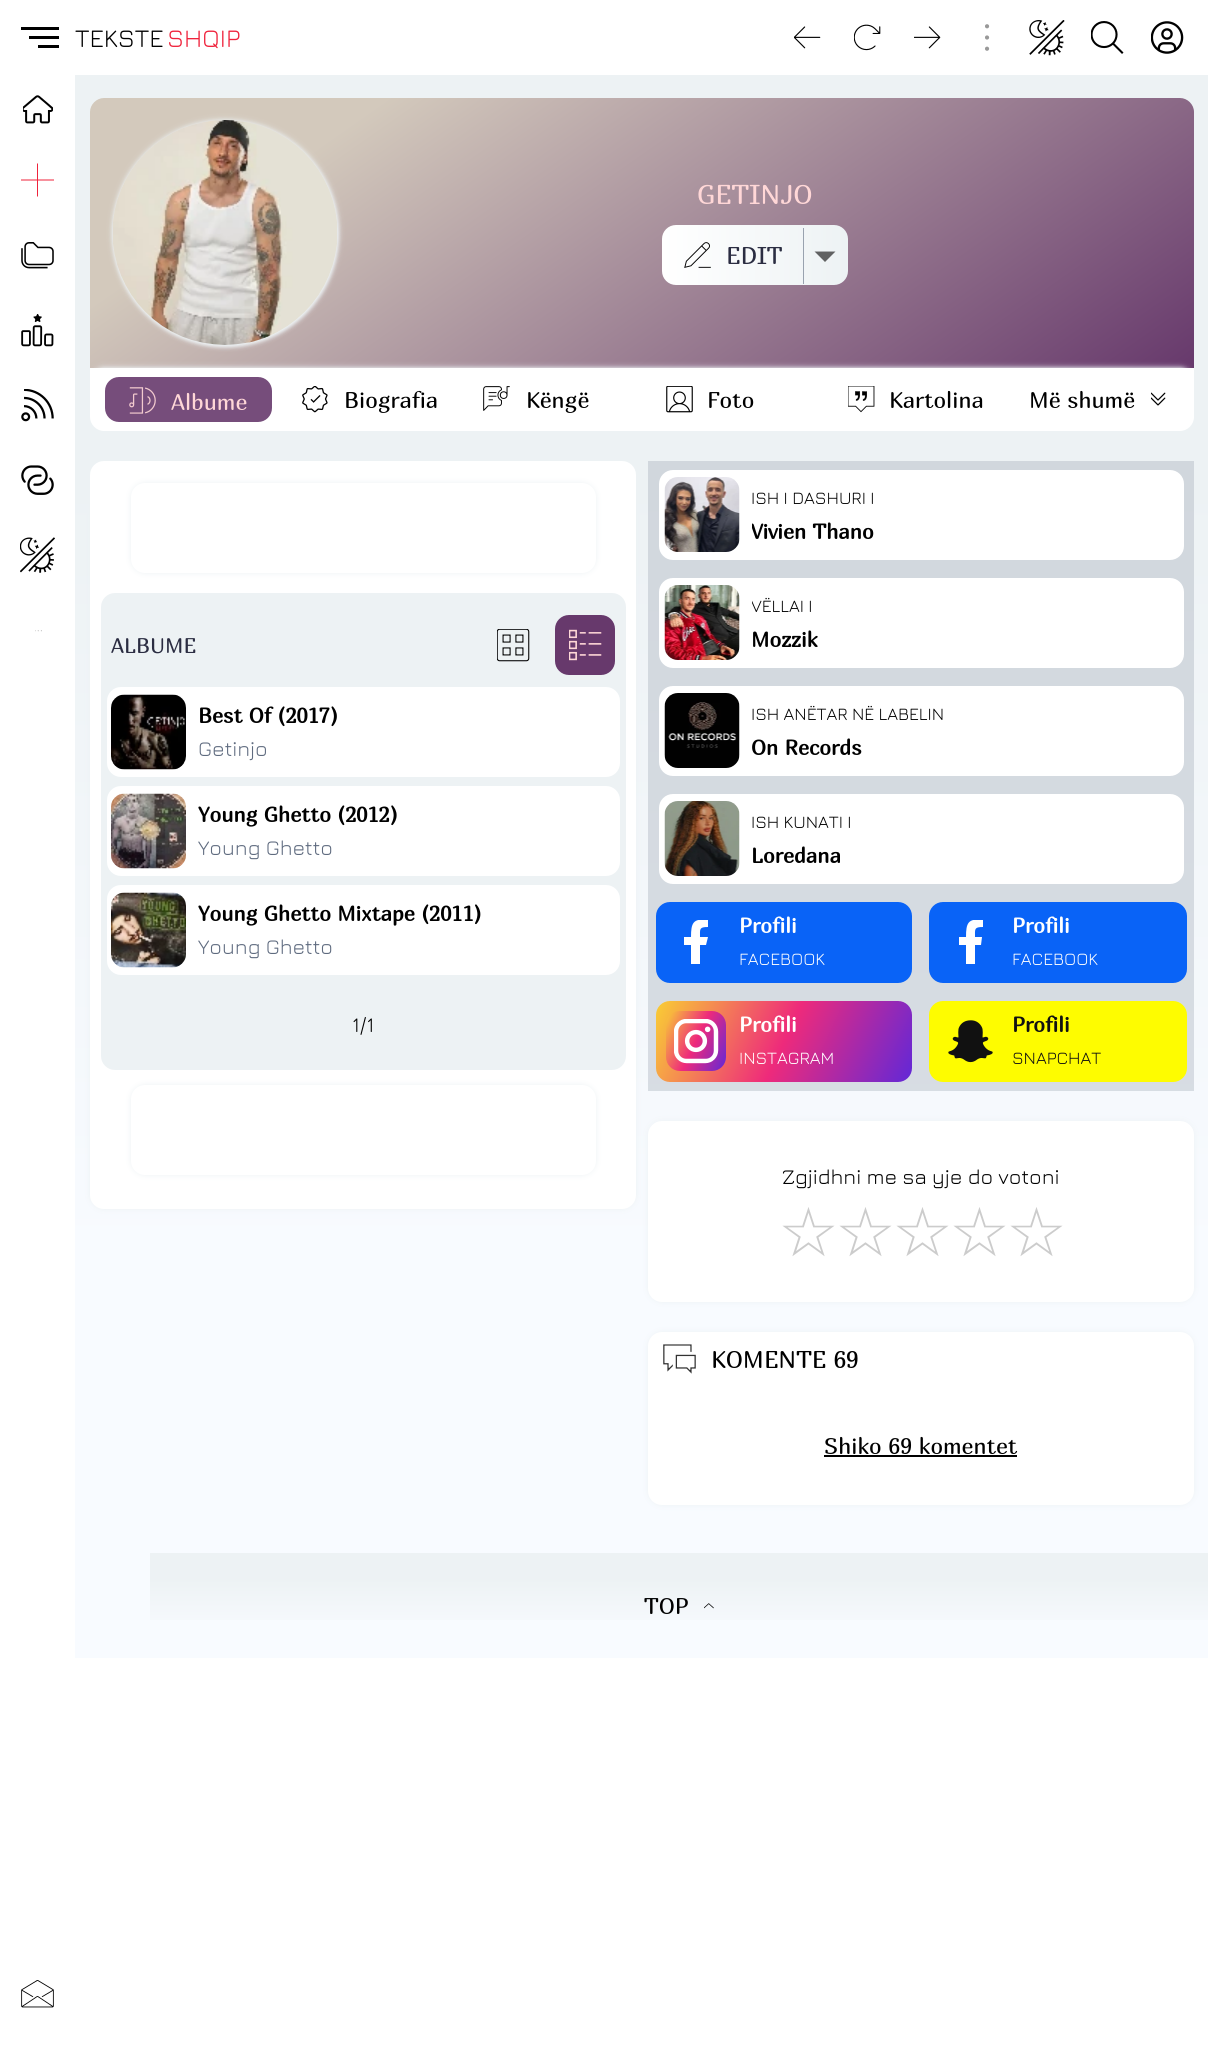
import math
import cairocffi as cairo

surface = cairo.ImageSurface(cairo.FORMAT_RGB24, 1208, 2051)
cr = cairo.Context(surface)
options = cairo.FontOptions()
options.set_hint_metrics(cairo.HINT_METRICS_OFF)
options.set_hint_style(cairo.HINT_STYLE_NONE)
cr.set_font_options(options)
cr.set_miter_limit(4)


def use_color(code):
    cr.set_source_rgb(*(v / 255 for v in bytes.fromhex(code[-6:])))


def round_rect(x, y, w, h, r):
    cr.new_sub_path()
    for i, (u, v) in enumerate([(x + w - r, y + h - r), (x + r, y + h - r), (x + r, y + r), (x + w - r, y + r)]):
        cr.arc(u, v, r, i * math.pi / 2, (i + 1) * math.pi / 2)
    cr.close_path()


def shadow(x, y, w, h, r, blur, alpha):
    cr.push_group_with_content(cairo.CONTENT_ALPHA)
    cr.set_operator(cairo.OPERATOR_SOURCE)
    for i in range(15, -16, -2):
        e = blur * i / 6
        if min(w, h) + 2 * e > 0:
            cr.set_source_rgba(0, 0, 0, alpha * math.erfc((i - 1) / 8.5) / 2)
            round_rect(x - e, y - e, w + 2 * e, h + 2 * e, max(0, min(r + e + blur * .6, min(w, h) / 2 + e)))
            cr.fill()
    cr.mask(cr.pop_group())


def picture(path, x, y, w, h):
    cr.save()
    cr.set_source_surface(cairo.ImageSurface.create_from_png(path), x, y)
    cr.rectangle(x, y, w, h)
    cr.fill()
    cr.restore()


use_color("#ffffff")
cr.paint()
use_color("#000000")
cr.rectangle(21, 27, 38, 3)
cr.fill()
cr.rectangle(29, 36, 30, 3)
cr.fill()
cr.rectangle(38, 45, 21, 3)
cr.fill()
cr.select_font_face("Jura Light")
cr.set_font_size(25.5)
cr.move_to(75, 47)
cr.show_text("TEKSTE")
use_color("#ef233c")
cr.move_to(167, 47)
cr.show_text("SHQIP")
picture("img1.png", 794, 26, 27, 23)
picture("img2.png", 854, 24, 27, 27)
picture("img3.png", 914, 26, 27, 23)
picture("img4.png", 985, 24, 5, 27)
picture("img5.png", 1029, 20, 36, 36)
picture("img6.png", 1091, 21, 33, 33)
picture("img7.png", 1151, 21, 33, 33)
picture("img8.png", 23, 95, 30, 29)
cr.new_path()
cr.move_to(37, 163.5)
cr.line_to(37, 179.5)
cr.line_to(21, 179.5)
cr.line_to(21, 180.5)
cr.line_to(37, 180.5)
cr.line_to(37, 196.5)
cr.line_to(38, 196.5)
cr.line_to(38, 180.5)
cr.line_to(54, 180.5)
cr.line_to(54, 179.5)
cr.line_to(38, 179.5)
cr.line_to(38, 163.5)
cr.close_path()
cr.fill()
picture("img9.png", 21, 242, 33, 27)
picture("img10.png", 21, 314, 33, 33)
picture("img11.png", 21, 389, 33, 33)
picture("img12.png", 21, 465, 33, 30)
picture("img13.png", 20, 537, 35, 36)
picture("img14.png", 35, 630, 7, 2)
picture("img15.png", 21, 1980, 33, 28)
gradient = cairo.LinearGradient(642, 75, 642, 1658)
gradient.add_color_stop_rgba(0.25, 0.929, 0.949, 0.957, 1)
gradient.add_color_stop_rgba(0.75, 0.973, 0.984, 1, 1)
gradient.add_color_stop_rgba(1, 0.973, 0.984, 1, 1)
cr.set_source(gradient)
cr.rectangle(75, 75, 1133, 1583)
cr.fill()
gradient = cairo.LinearGradient(642, 75, 642, 1658)
gradient.add_color_stop_rgba(0.25, 0.82, 0.843, 0.867, 1)
gradient.add_color_stop_rgba(0.75, 0.851, 0.871, 0.898, 1)
gradient.add_color_stop_rgba(1, 0.851, 0.871, 0.898, 1)
cr.set_source(gradient)
cr.rectangle(648, 461, 546, 630)
cr.fill()
gradient = cairo.LinearGradient(397, -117, 887, 582)
gradient.add_color_stop_rgba(0.2, 0.827, 0.788, 0.737, 1)
gradient.add_color_stop_rgba(1, 0.404, 0.224, 0.424, 1)
cr.set_source(gradient)
cr.new_path()
cr.move_to(104, 98)
cr.line_to(1180, 98)
cr.curve_to(1187.5, 98, 1194, 104.5, 1194, 112)
cr.line_to(1194, 368)
cr.line_to(90, 368)
cr.line_to(90, 112)
cr.curve_to(90, 104.5, 96.5, 98, 104, 98)
cr.close_path()
cr.fill()
use_color("#edf2f4")
shadow(113, 120, 225, 225, 112.5, 3, 1)
shadow(113, 122, 225, 225, 112.5, 2, 1)
picture("img16.png", 113, 120, 224, 225)
cr.select_font_face("Marmelad")
cr.set_font_size(27)
use_color("#ffd7d7")
cr.move_to(697, 204)
cr.show_text("GETINJO")
gradient = cairo.LinearGradient(662, 255, 848, 255)
gradient.add_color_stop_rgba(0, 1, 1, 1, 1)
gradient.add_color_stop_rgba(1, 0.929, 0.949, 0.957, 1)
cr.set_source(gradient)
round_rect(662, 225, 186, 60, 14)
cr.fill()
picture("img17.png", 684, 242, 27, 26)
cr.set_font_size(24)
use_color("#2b2d42")
cr.move_to(726, 264)
cr.show_text("EDIT")
use_color("#99a2af")
cr.new_path()
cr.move_to(803, 228)
cr.line_to(803, 284)
cr.line_to(834, 284)
cr.line_to(804, 284)
cr.line_to(804, 228)
cr.close_path()
cr.fill()
use_color("#606162")
cr.new_path()
cr.move_to(814.5, 251.5)
cr.line_to(825, 262)
cr.line_to(835.5, 251.5)
cr.close_path()
cr.fill()
use_color("#edf2f4")
shadow(90, 368, 1104, 63, 14, 3, 1)
shadow(90, 369, 1104, 63, 14, 2, 1)
use_color("#ffffff")
cr.new_path()
cr.move_to(90, 368)
cr.line_to(1194, 368)
cr.line_to(1194, 417)
cr.curve_to(1194, 424.5, 1187.5, 431, 1180, 431)
cr.line_to(104, 431)
cr.curve_to(96.5, 431, 90, 424.5, 90, 417)
cr.close_path()
cr.fill()
use_color("#764d7b")
round_rect(106, 378, 165, 43, 13)
cr.fill_preserve()
cr.stroke()
picture("img18.png", 129, 387, 27, 27)
cr.set_font_size(22.5)
use_color("#ffd7d7")
cr.move_to(171, 410)
cr.show_text("Albume")
picture("img19.png", 302, 386, 26, 27)
use_color("#000000")
cr.move_to(344, 408)
cr.show_text("Biografia")
picture("img20.png", 483, 386, 27, 25)
cr.move_to(526, 408)
cr.show_text("Këngë")
picture("img21.png", 666, 386, 27, 27)
cr.move_to(707, 408)
cr.show_text("Foto")
picture("img22.png", 848, 386, 27, 27)
cr.move_to(889, 408)
cr.show_text("Kartolina")
cr.move_to(1029, 408)
cr.show_text("Më shumë")
picture("img23.png", 1151, 392, 15, 14)
use_color("#edf2f4")
shadow(90, 461, 546, 748, 14, 3, 1)
use_color("#ffffff")
round_rect(90, 461, 546, 748, 14)
cr.fill()
use_color("#edf2f4")
shadow(131, 483, 465, 90, 14, 3, 1)
use_color("#ffffff")
round_rect(131, 483, 465, 90, 14)
cr.fill()
use_color("#edf2f4")
round_rect(101, 593, 525, 477, 14)
cr.fill()
cr.set_font_size(21)
use_color("#2b2d42")
cr.move_to(111, 653)
cr.show_text("ALBUME")
picture("img24.png", 497, 629, 33, 33)
use_color("#67396c")
round_rect(556, 616, 58, 58, 13)
cr.fill_preserve()
cr.stroke()
picture("img25.png", 569, 629, 33, 32)
use_color("#ffffff")
round_rect(107, 687, 513, 90, 14)
cr.fill()
picture("img26.png", 111, 694, 75, 76)
cr.select_font_face("Marmelad", cairo.FONT_SLANT_NORMAL, cairo.FONT_WEIGHT_BOLD)
use_color("#000000")
cr.move_to(198, 723)
cr.show_text("Best Of (2017)")
cr.select_font_face("Jura Light")
use_color("#5f6b7f")
cr.move_to(198, 756)
cr.show_text("Getinjo")
use_color("#ffffff")
round_rect(107, 786, 513, 90, 14)
cr.fill()
picture("img27.png", 111, 793, 75, 76)
cr.select_font_face("Marmelad", cairo.FONT_SLANT_NORMAL, cairo.FONT_WEIGHT_BOLD)
use_color("#000000")
cr.move_to(198, 822)
cr.show_text("Young Ghetto (2012)")
cr.select_font_face("Jura Light")
use_color("#5f6b7f")
cr.move_to(198, 855)
cr.show_text("Young Ghetto")
use_color("#ffffff")
round_rect(107, 885, 513, 90, 14)
cr.fill()
picture("img28.png", 111, 892, 75, 76)
cr.select_font_face("Marmelad", cairo.FONT_SLANT_NORMAL, cairo.FONT_WEIGHT_BOLD)
use_color("#000000")
cr.move_to(198, 921)
cr.show_text("Young Ghetto Mixtape (2011)")
cr.select_font_face("Jura Light")
use_color("#5f6b7f")
cr.move_to(198, 954)
cr.show_text("Young Ghetto")
use_color("#000000")
cr.move_to(352, 1032)
cr.show_text("1/1")
use_color("#edf2f4")
shadow(131, 1085, 465, 90, 14, 3, 1)
use_color("#ffffff")
round_rect(131, 1085, 465, 90, 14)
cr.fill()
round_rect(659, 470, 525, 90, 14)
cr.fill()
picture("img29.png", 664, 477, 76, 75)
cr.set_font_size(17.5)
use_color("#000000")
cr.move_to(751, 504)
cr.show_text("ISH I DASHURI I")
cr.save()
cr.rectangle(752, 482, 426, 66)
cr.clip()
cr.select_font_face("Marmelad", cairo.FONT_SLANT_NORMAL, cairo.FONT_WEIGHT_BOLD)
cr.set_font_size(21)
cr.move_to(751, 539)
cr.show_text("Vivien Thano")
cr.restore()
use_color("#ffffff")
round_rect(659, 578, 525, 90, 14)
cr.fill()
picture("img30.png", 664, 585, 76, 75)
cr.save()
cr.rectangle(752, 590, 426, 66)
cr.clip()
use_color("#000000")
cr.move_to(751, 612)
cr.show_text("VËLLAI I")
cr.restore()
cr.select_font_face("Marmelad", cairo.FONT_SLANT_NORMAL, cairo.FONT_WEIGHT_BOLD)
cr.set_font_size(21)
use_color("#000000")
cr.move_to(751, 647)
cr.show_text("Mozzik")
use_color("#ffffff")
round_rect(659, 686, 525, 90, 14)
cr.fill()
picture("img31.png", 664, 693, 76, 75)
cr.select_font_face("Jura Light")
cr.set_font_size(17.5)
use_color("#000000")
cr.move_to(751, 720)
cr.show_text("ISH ANËTAR NË LABELIN")
cr.select_font_face("Marmelad", cairo.FONT_SLANT_NORMAL, cairo.FONT_WEIGHT_BOLD)
cr.set_font_size(21)
cr.move_to(751, 755)
cr.show_text("On Records")
use_color("#ffffff")
round_rect(659, 794, 525, 90, 14)
cr.fill()
picture("img32.png", 664, 801, 76, 75)
cr.select_font_face("Jura Light")
cr.set_font_size(17.5)
use_color("#000000")
cr.move_to(751, 828)
cr.show_text("ISH KUNATI I")
cr.select_font_face("Marmelad", cairo.FONT_SLANT_NORMAL, cairo.FONT_WEIGHT_BOLD)
cr.set_font_size(21)
cr.move_to(751, 863)
cr.show_text("Loredana")
use_color("#0963f7")
round_rect(656, 902, 256, 81, 14)
cr.fill()
cr.save()
cr.rectangle(674, 920, 45, 45)
cr.clip()
use_color("#ffffff")
cr.new_path()
cr.move_to(691, 964)
cr.line_to(691, 945)
cr.line_to(684, 945)
cr.line_to(684, 937)
cr.line_to(691, 937)
cr.curve_to(691, 923, 693, 918, 708, 920)
cr.line_to(708, 927)
cr.curve_to(699, 927, 700, 929, 700, 937)
cr.line_to(708, 937)
cr.line_to(706, 945)
cr.line_to(700, 945)
cr.line_to(700, 964)
cr.fill()
cr.restore()
use_color("#ffffff")
cr.move_to(739, 933)
cr.show_text("Profili")
cr.select_font_face("Jura Light")
cr.set_font_size(17.5)
cr.move_to(739, 965)
cr.show_text("FACEBOOK")
use_color("#0963f7")
round_rect(929, 902, 258, 81, 14)
cr.fill()
cr.save()
cr.rectangle(948, 920, 45, 45)
cr.clip()
use_color("#ffffff")
cr.new_path()
cr.move_to(966, 964)
cr.line_to(966, 945)
cr.line_to(959, 945)
cr.line_to(959, 937)
cr.line_to(966, 937)
cr.curve_to(966, 923, 968, 918, 983, 920)
cr.line_to(983, 927)
cr.curve_to(974, 927, 975, 929, 975, 937)
cr.line_to(982, 937)
cr.line_to(981, 945)
cr.line_to(975, 945)
cr.line_to(975, 964)
cr.fill()
cr.restore()
cr.select_font_face("Marmelad", cairo.FONT_SLANT_NORMAL, cairo.FONT_WEIGHT_BOLD)
cr.set_font_size(21)
use_color("#ffffff")
cr.move_to(1012, 933)
cr.show_text("Profili")
cr.select_font_face("Jura Light")
cr.set_font_size(17.5)
cr.move_to(1012, 965)
cr.show_text("FACEBOOK")
gradient = cairo.LinearGradient(663, 985, 905, 1097)
gradient.add_color_stop_rgba(0, 0.976, 0.808, 0.204, 1)
gradient.add_color_stop_rgba(0.5, 0.933, 0.165, 0.482, 1)
gradient.add_color_stop_rgba(1, 0.384, 0.157, 0.843, 1)
cr.set_source(gradient)
round_rect(656, 1001, 256, 81, 14)
cr.fill()
gradient = cairo.LinearGradient(660, 1024, 732, 1058)
gradient.add_color_stop_rgba(0, 0.976, 0.808, 0.204, 1)
gradient.add_color_stop_rgba(0.5, 0.933, 0.165, 0.482, 1)
gradient.add_color_stop_rgba(1, 0.384, 0.157, 0.843, 1)
cr.set_source(gradient)
round_rect(666, 1011, 60, 60, 14)
cr.fill()
picture("img33.png", 674, 1019, 45, 45)
cr.select_font_face("Marmelad", cairo.FONT_SLANT_NORMAL, cairo.FONT_WEIGHT_BOLD)
cr.set_font_size(21)
use_color("#ffffff")
cr.move_to(739, 1032)
cr.show_text("Profili")
cr.select_font_face("Jura Light")
cr.set_font_size(17.5)
cr.move_to(739, 1064)
cr.show_text("INSTAGRAM")
use_color("#fefc00")
round_rect(929, 1001, 258, 81, 14)
cr.fill()
picture("img34.png", 948, 1020, 45, 43)
cr.select_font_face("Marmelad", cairo.FONT_SLANT_NORMAL, cairo.FONT_WEIGHT_BOLD)
cr.set_font_size(21)
use_color("#111111")
cr.move_to(1012, 1032)
cr.show_text("Profili")
cr.select_font_face("Jura Light")
cr.set_font_size(17.5)
cr.move_to(1012, 1064)
cr.show_text("SNAPCHAT")
use_color("#edf2f4")
shadow(648, 1121, 546, 181, 14, 3, 1)
use_color("#ffffff")
round_rect(648, 1121, 546, 181, 14)
cr.fill()
cr.set_font_size(21)
use_color("#000000")
cr.move_to(782, 1184)
cr.show_text("Zgjidhni me sa yje do votoni")
cr.select_font_face("DejaVu Sans")
cr.set_font_size(68)
use_color("#cccccc")
cr.move_to(778, 1256)
cr.show_text("☆")
cr.move_to(835, 1256)
cr.show_text("☆")
cr.move_to(892, 1256)
cr.show_text("☆")
cr.move_to(949, 1256)
cr.show_text("☆")
cr.move_to(1006, 1256)
cr.show_text("☆")
use_color("#edf2f4")
shadow(648, 1332, 546, 173, 14, 3, 1)
use_color("#ffffff")
round_rect(648, 1332, 546, 173, 14)
cr.fill()
picture("img35.png", 663, 1344, 33, 30)
cr.select_font_face("Marmelad")
cr.set_font_size(24)
use_color("#000000")
cr.move_to(711, 1368)
cr.show_text("KOMENTE 69")
cr.set_font_size(22.5)
cr.move_to(824, 1454)
cr.show_text("Shiko 69 komentet")
cr.rectangle(824, 1455, 193, 2)
cr.fill()
gradient = cairo.LinearGradient(680, 1553, 680, 1658)
gradient.add_color_stop_rgba(0.25, 0.929, 0.949, 0.957, 1)
gradient.add_color_stop_rgba(0.75, 0.973, 0.984, 1, 1)
gradient.add_color_stop_rgba(1, 0.973, 0.984, 1, 1)
cr.set_source(gradient)
cr.rectangle(150, 1553, 1058, 67)
cr.fill()
use_color("#000000")
cr.move_to(644, 1614)
cr.show_text("TOP")
picture("img36.png", 704, 1603, 10, 6)
surface.write_to_png("result.png")
